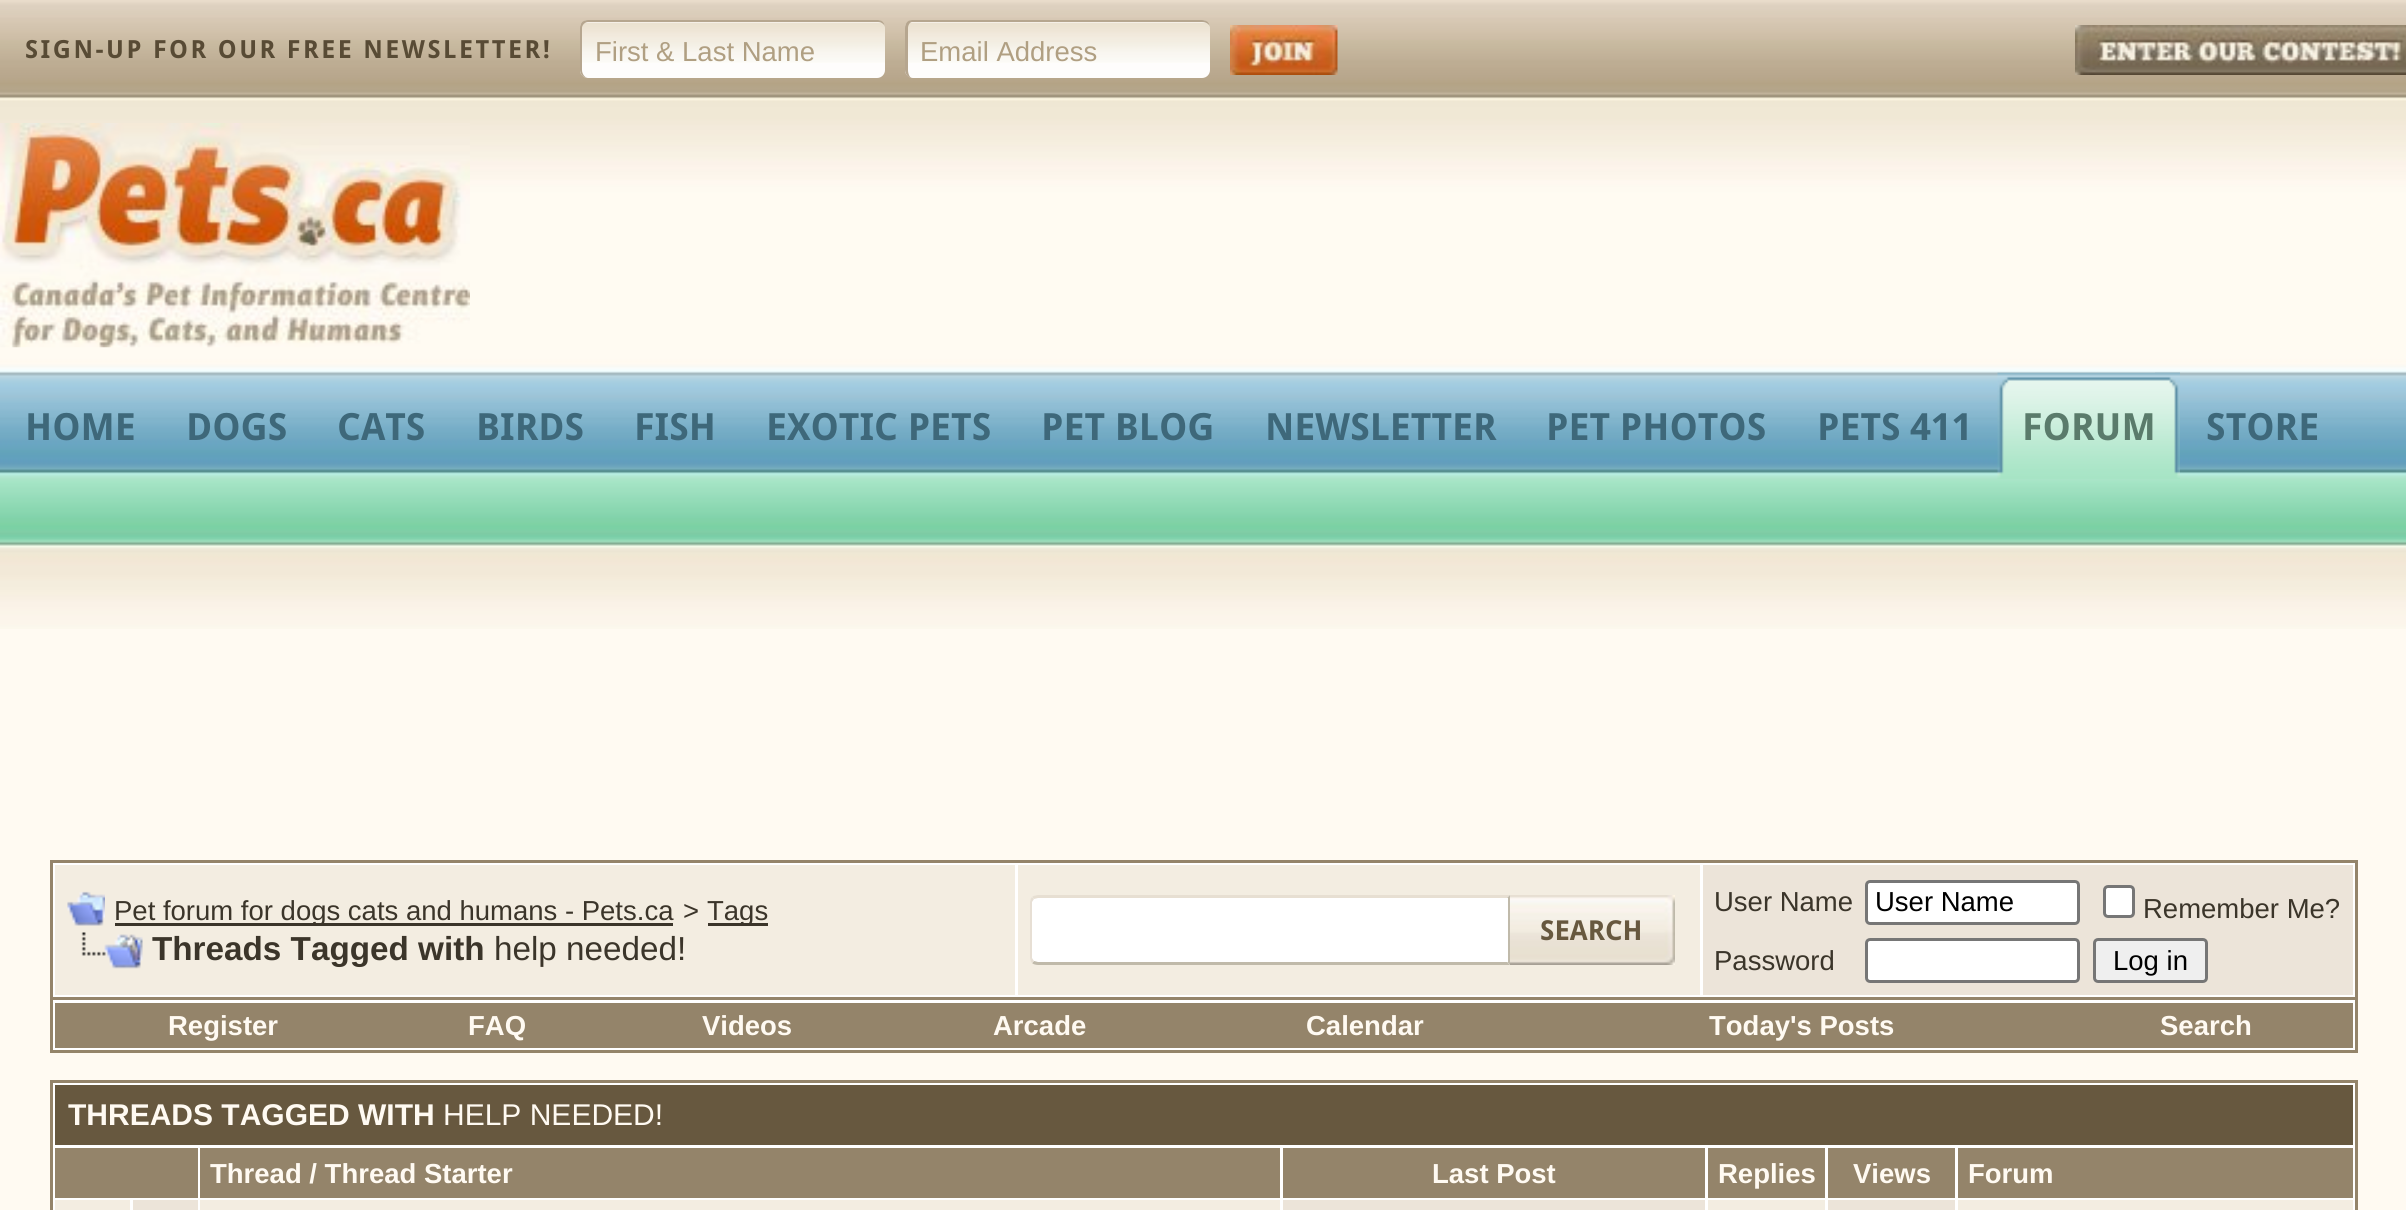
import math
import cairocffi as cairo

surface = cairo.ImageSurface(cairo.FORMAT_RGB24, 2406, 1210)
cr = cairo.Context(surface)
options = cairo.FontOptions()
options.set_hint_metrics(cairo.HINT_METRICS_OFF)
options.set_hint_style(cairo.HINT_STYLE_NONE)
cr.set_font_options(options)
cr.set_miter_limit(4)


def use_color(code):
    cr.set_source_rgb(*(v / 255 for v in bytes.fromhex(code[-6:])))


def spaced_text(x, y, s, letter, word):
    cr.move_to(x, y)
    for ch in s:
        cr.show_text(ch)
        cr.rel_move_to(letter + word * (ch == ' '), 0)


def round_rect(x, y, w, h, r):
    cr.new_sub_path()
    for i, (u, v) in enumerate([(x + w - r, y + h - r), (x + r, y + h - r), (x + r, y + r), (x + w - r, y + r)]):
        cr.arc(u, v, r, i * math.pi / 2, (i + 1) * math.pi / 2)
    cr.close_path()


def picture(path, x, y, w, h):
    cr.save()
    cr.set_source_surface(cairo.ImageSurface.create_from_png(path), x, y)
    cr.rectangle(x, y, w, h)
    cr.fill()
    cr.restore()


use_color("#fffaf2")
cr.paint()
picture("img1.png", 0, 0, 2406, 629)
cr.select_font_face("Droid Sans", cairo.FONT_SLANT_NORMAL, cairo.FONT_WEIGHT_BOLD)
cr.set_font_size(25)
use_color("#584b35")
spaced_text(25, 58, "SIGN-UP FOR OUR FREE NEWSLETTER!", 2.5, 0)
use_color("#fefdfc")
round_rect(580, 20, 305, 58, 8)
cr.fill()
picture("img2.png", 580, 22, 305, 41)
use_color("#b6a68f")
cr.set_fill_rule(cairo.FILL_RULE_EVEN_ODD)
cr.new_path()
cr.move_to(588, 20)
cr.line_to(878, 20)
cr.curve_to(882, 20, 885, 23, 885, 28)
cr.line_to(885, 70)
cr.curve_to(885, 74, 882, 78, 878, 78)
cr.line_to(588, 78)
cr.curve_to(583, 78, 580, 74, 580, 70)
cr.line_to(580, 28)
cr.curve_to(580, 23, 583, 20, 588, 20)
cr.close_path()
cr.move_to(588, 22)
cr.line_to(878, 22)
cr.curve_to(882, 22, 885, 25, 885, 28)
cr.line_to(885, 70)
cr.curve_to(885, 74, 882, 78, 878, 78)
cr.line_to(588, 78)
cr.curve_to(585, 78, 582, 74, 582, 70)
cr.line_to(582, 28)
cr.curve_to(582, 25, 585, 22, 588, 22)
cr.close_path()
cr.fill()
cr.select_font_face("Liberation Sans")
cr.set_font_size(27.5)
use_color("#b09f82")
cr.move_to(595, 61)
cr.show_text("First & Last Name")
use_color("#fefdfc")
round_rect(905, 20, 305, 58, 8)
cr.fill()
picture("img2.png", 905, 22, 305, 41)
use_color("#b6a68f")
cr.new_path()
cr.move_to(912, 20)
cr.line_to(1202, 20)
cr.curve_to(1207, 20, 1210, 23, 1210, 28)
cr.line_to(1210, 70)
cr.curve_to(1210, 74, 1207, 78, 1202, 78)
cr.line_to(912, 78)
cr.curve_to(908, 78, 905, 74, 905, 70)
cr.line_to(905, 28)
cr.curve_to(905, 23, 908, 20, 912, 20)
cr.close_path()
cr.move_to(912, 22)
cr.line_to(1202, 22)
cr.curve_to(1207, 22, 1210, 25, 1210, 28)
cr.line_to(1210, 70)
cr.curve_to(1210, 74, 1207, 78, 1202, 78)
cr.line_to(912, 78)
cr.curve_to(910, 78, 908, 74, 908, 70)
cr.line_to(908, 28)
cr.curve_to(908, 25, 910, 22, 912, 22)
cr.close_path()
cr.fill()
use_color("#b09f82")
cr.move_to(920, 61)
cr.show_text("Email Address")
picture("img3.png", 1230, 25, 108, 50)
picture("img4.png", 2075, 25, 331, 50)
picture("img5.png", 0, 123, 470, 225)
cr.select_font_face("Droid Sans", cairo.FONT_SLANT_NORMAL, cairo.FONT_WEIGHT_BOLD)
cr.set_font_size(37.5)
use_color("#3e687a")
cr.move_to(25, 440)
cr.show_text("HOME")
cr.move_to(186, 440)
cr.show_text("DOGS")
cr.move_to(337, 440)
cr.show_text("CATS")
cr.move_to(476, 440)
cr.show_text("BIRDS")
cr.move_to(634, 440)
cr.show_text("FISH")
cr.move_to(766, 440)
cr.show_text("EXOTIC PETS")
cr.move_to(1041, 440)
cr.show_text("PET BLOG")
cr.move_to(1265, 440)
cr.show_text("NEWSLETTER")
cr.move_to(1546, 440)
cr.show_text("PET PHOTOS")
cr.move_to(1817, 440)
cr.show_text("PETS 411")
picture("img6.png", 1997, 372, 183, 107)
picture("img7.png", 2155, 372, 25, 106)
use_color("#5a7b6b")
cr.move_to(2022, 440)
cr.show_text("FORUM")
use_color("#3e687a")
cr.move_to(2206, 440)
cr.show_text("STORE")
use_color("#ffffff")
cr.rectangle(51.5, 861.5, 2305, 137)
cr.fill_preserve()
use_color("#94846a")
cr.set_line_width(3)
cr.stroke()
use_color("#f3ede1")
cr.rectangle(55, 865, 960, 130)
cr.fill()
picture("img8.png", 67, 891, 38, 35)
use_color("#3b352a")
cr.rectangle(115, 923, 558, 3)
cr.fill()
cr.select_font_face("Liberation Sans")
cr.set_font_size(27.5)
cr.move_to(114, 920)
cr.show_text("Pet forum for dogs cats and humans - Pets.ca")
cr.move_to(683, 920)
cr.show_text(">")
cr.rectangle(708, 923, 60, 3)
cr.fill()
cr.move_to(707, 920)
cr.show_text("Tags")
picture("img9.png", 81, 932, 62, 37)
cr.select_font_face("Liberation Sans", cairo.FONT_SLANT_NORMAL, cairo.FONT_WEIGHT_BOLD)
cr.set_font_size(33.25)
cr.move_to(152, 960)
cr.show_text("Threads Tagged with")
cr.select_font_face("Liberation Sans")
cr.move_to(494, 960)
cr.show_text("help needed!")
use_color("#f3ede1")
cr.rectangle(1018, 865, 682, 130)
cr.fill()
use_color("#ffffff")
cr.new_path()
cr.move_to(1038, 895)
cr.line_to(1510, 895)
cr.line_to(1510, 965)
cr.line_to(1038, 965)
cr.curve_to(1033.5, 965, 1030, 961.5, 1030, 957)
cr.line_to(1030, 903)
cr.curve_to(1030, 898.5, 1033.5, 895, 1038, 895)
cr.close_path()
cr.fill()
use_color("#e7dfd2")
cr.set_fill_rule(cairo.FILL_RULE_WINDING)
cr.new_path()
cr.move_to(1038, 895)
cr.curve_to(1035, 895, 1033, 896, 1032, 897)
cr.line_to(1034, 899)
cr.line_to(1038, 898)
cr.line_to(1507, 898)
cr.line_to(1510, 895)
cr.close_path()
cr.fill()
use_color("#c0baaa")
cr.new_path()
cr.move_to(1510, 895)
cr.line_to(1507, 898)
cr.line_to(1508, 898)
cr.line_to(1508, 962)
cr.line_to(1507, 962)
cr.line_to(1510, 965)
cr.close_path()
cr.fill()
cr.new_path()
cr.move_to(1510, 965)
cr.line_to(1507, 962)
cr.line_to(1038, 962)
cr.line_to(1034, 961)
cr.line_to(1032, 963)
cr.curve_to(1033, 964, 1035, 965, 1038, 965)
cr.close_path()
cr.fill()
use_color("#e7dfd4")
cr.new_path()
cr.move_to(1030, 902)
cr.line_to(1030, 958)
cr.curve_to(1030, 960, 1031, 962, 1032, 963)
cr.line_to(1034, 961)
cr.line_to(1032, 958)
cr.line_to(1032, 902)
cr.line_to(1034, 899)
cr.line_to(1032, 897)
cr.curve_to(1031, 898, 1030, 900, 1030, 902)
cr.close_path()
cr.fill()
picture("img10.png", 1510, 895, 165, 70)
cr.select_font_face("Droid Sans", cairo.FONT_SLANT_NORMAL, cairo.FONT_WEIGHT_BOLD)
cr.set_font_size(27.5)
use_color("#67583f")
cr.move_to(1540, 940)
cr.show_text("SEARCH")
use_color("#ece4d9")
cr.rectangle(1703, 865, 650, 130)
cr.fill()
cr.select_font_face("Liberation Sans")
use_color("#3b352a")
cr.move_to(1714, 911)
cr.show_text("User Name")
use_color("#ffffff")
round_rect(1866.5, 881.5, 212, 42, 3.5)
cr.fill_preserve()
use_color("#767676")
cr.stroke()
use_color("#000000")
cr.move_to(1875, 911)
cr.show_text("User Name")
use_color("#ffffff")
round_rect(2104.5, 886.5, 29, 30, 3.5)
cr.fill_preserve()
use_color("#767676")
cr.stroke()
use_color("#3b352a")
cr.move_to(2143, 918)
cr.show_text("Remember Me?")
cr.move_to(1714, 970)
cr.show_text("Password")
use_color("#ffffff")
round_rect(1866.5, 939.5, 212, 42, 3.5)
cr.fill_preserve()
use_color("#767676")
cr.stroke()
use_color("#efefef")
round_rect(2094.5, 939.5, 112, 42, 3.5)
cr.fill_preserve()
use_color("#767676")
cr.stroke()
use_color("#000000")
cr.move_to(2113, 970)
cr.show_text("Log in")
use_color("#ffffff")
cr.rectangle(53, 1000, 2302, 50)
cr.fill()
use_color("#94846a")
cr.rectangle(2355, 1000, 3, 53)
cr.fill()
cr.rectangle(50, 1050, 2308, 3)
cr.fill()
cr.rectangle(50, 1000, 3, 53)
cr.fill()
cr.rectangle(55, 1003, 2298, 45)
cr.fill()
cr.select_font_face("Liberation Sans", cairo.FONT_SLANT_NORMAL, cairo.FONT_WEIGHT_BOLD)
use_color("#fffaf2")
cr.move_to(168, 1035)
cr.show_text("Register")
cr.move_to(468, 1035)
cr.show_text("FAQ")
cr.move_to(702, 1035)
cr.show_text("Videos")
cr.move_to(993, 1035)
cr.show_text("Arcade")
cr.move_to(1306, 1035)
cr.show_text("Calendar")
cr.move_to(1709, 1035)
cr.show_text("Today's Posts")
cr.move_to(2160, 1035)
cr.show_text("Search")
use_color("#ffffff")
cr.rectangle(51.5, 1081.5, 2305, 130)
cr.fill_preserve()
use_color("#94846a")
cr.stroke()
use_color("#67583f")
cr.rectangle(55, 1085, 2298, 60)
cr.fill()
cr.set_font_size(30)
use_color("#fffaf2")
cr.move_to(68, 1125)
cr.show_text("THREADS TAGGED WITH")
cr.select_font_face("Liberation Sans")
cr.move_to(443, 1125)
cr.show_text("HELP NEEDED!")
use_color("#94846a")
cr.rectangle(55, 1148, 143, 50)
cr.fill()
cr.rectangle(200, 1148, 1080, 50)
cr.fill()
cr.select_font_face("Liberation Sans", cairo.FONT_SLANT_NORMAL, cairo.FONT_WEIGHT_BOLD)
cr.set_font_size(27.5)
use_color("#fffaf2")
cr.move_to(210, 1183)
cr.show_text("Thread / Thread Starter")
use_color("#94846a")
cr.rectangle(1283, 1148, 422, 50)
cr.fill()
use_color("#fffaf2")
cr.move_to(1432, 1183)
cr.show_text("Last Post")
use_color("#94846a")
cr.rectangle(1708, 1148, 117, 50)
cr.fill()
use_color("#fffaf2")
cr.move_to(1718, 1183)
cr.show_text("Replies")
use_color("#94846a")
cr.rectangle(1828, 1148, 127, 50)
cr.fill()
use_color("#fffaf2")
cr.move_to(1853, 1183)
cr.show_text("Views")
use_color("#94846a")
cr.rectangle(1958, 1148, 395, 50)
cr.fill()
use_color("#fffaf2")
cr.move_to(1968, 1183)
cr.show_text("Forum")
use_color("#f3ede1")
cr.rectangle(55, 1200, 75, 10)
cr.fill()
use_color("#ece4d9")
cr.rectangle(133, 1200, 65, 10)
cr.fill()
use_color("#f3ede1")
cr.rectangle(200, 1200, 1080, 10)
cr.fill()
use_color("#ece4d9")
cr.rectangle(1283, 1200, 422, 10)
cr.fill()
use_color("#f3ede1")
cr.rectangle(1708, 1200, 117, 10)
cr.fill()
use_color("#ece4d9")
cr.rectangle(1828, 1200, 127, 10)
cr.fill()
use_color("#f3ede1")
cr.rectangle(1958, 1200, 395, 10)
cr.fill()
surface.write_to_png("result.png")
